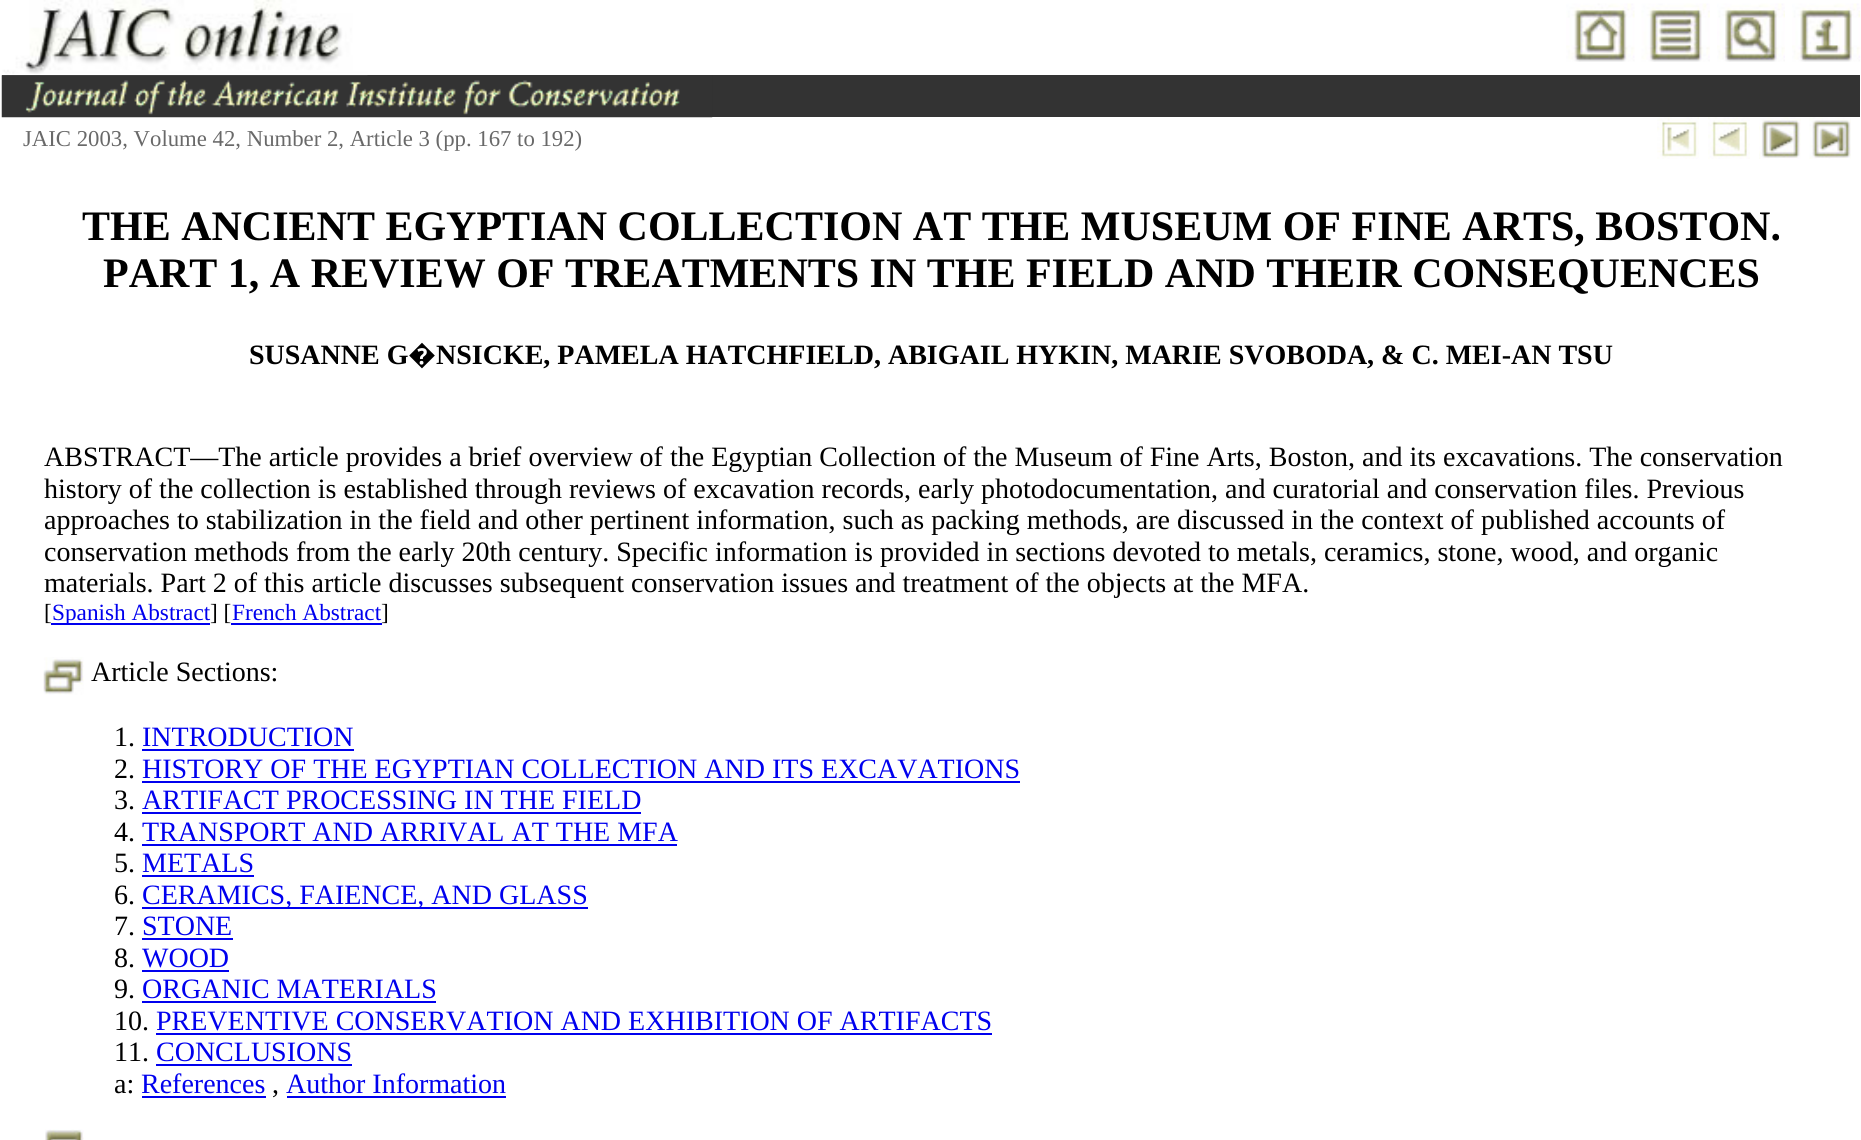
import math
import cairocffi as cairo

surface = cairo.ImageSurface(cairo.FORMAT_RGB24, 1861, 1140)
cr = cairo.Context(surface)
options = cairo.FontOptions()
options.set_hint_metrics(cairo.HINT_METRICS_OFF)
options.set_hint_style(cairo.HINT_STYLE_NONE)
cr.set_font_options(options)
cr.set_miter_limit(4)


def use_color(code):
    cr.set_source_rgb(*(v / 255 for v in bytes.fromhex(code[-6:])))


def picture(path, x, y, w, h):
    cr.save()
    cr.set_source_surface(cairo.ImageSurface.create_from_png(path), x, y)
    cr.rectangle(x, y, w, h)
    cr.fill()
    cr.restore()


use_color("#ffffff")
cr.paint()
use_color("#333333")
cr.rectangle(2, 75, 1858, 42)
cr.fill()
picture("img1.png", 2, 0, 366, 76)
picture("img2.png", 1566, 3, 69, 59)
picture("img3.png", 1641, 3, 69, 59)
picture("img4.png", 1717, 3, 68, 59)
picture("img5.png", 1792, 3, 69, 59)
picture("img6.png", 1, 75, 712, 43)
cr.select_font_face("Liberation Serif")
cr.set_font_size(22.75)
use_color("#696969")
cr.move_to(23, 146)
cr.show_text("JAIC 2003, Volume 42, Number 2, Article 3 (pp. 167 to 192)")
picture("img7.png", 1657, 117, 42, 42)
picture("img8.png", 1708, 117, 42, 42)
picture("img9.png", 1759, 117, 42, 42)
picture("img10.png", 1809, 117, 42, 42)
cr.select_font_face("Liberation Serif", cairo.FONT_SLANT_NORMAL, cairo.FONT_WEIGHT_BOLD)
cr.set_font_size(42)
use_color("#000000")
cr.move_to(82, 240)
cr.show_text("THE ANCIENT EGYPTIAN COLLECTION AT THE MUSEUM OF FINE ARTS, BOSTON.")
cr.move_to(103, 287)
cr.show_text("PART 1, A REVIEW OF TREATMENTS IN THE FIELD AND THEIR CONSEQUENCES")
cr.set_font_size(28)
cr.move_to(249, 364)
cr.show_text("SUSANNE G")
cr.select_font_face("Noto Sans", cairo.FONT_SLANT_NORMAL, cairo.FONT_WEIGHT_BOLD)
cr.move_to(408, 364)
cr.show_text("�")
cr.select_font_face("Liberation Serif", cairo.FONT_SLANT_NORMAL, cairo.FONT_WEIGHT_BOLD)
cr.move_to(436, 364)
cr.show_text("NSICKE, PAMELA HATCHFIELD, ABIGAIL HYKIN, MARIE SVOBODA, & C. MEI-AN TSU")
cr.select_font_face("Liberation Serif")
cr.move_to(44, 466)
cr.show_text("ABSTRACT—The article provides a brief overview of the Egyptian Collection of the Museum of Fine Arts, Boston, and its excavations. The conservation")
cr.move_to(44, 498)
cr.show_text("history of the collection is established through reviews of excavation records, early photodocumentation, and curatorial and conservation files. Previous")
cr.move_to(44, 529)
cr.show_text("approaches to stabilization in the field and other pertinent information, such as packing methods, are discussed in the context of published accounts of")
cr.move_to(44, 561)
cr.show_text("conservation methods from the early 20th century. Specific information is provided in sections devoted to metals, ceramics, stone, wood, and organic")
cr.move_to(44, 592)
cr.show_text("materials. Part 2 of this article discusses subsequent conservation issues and treatment of the objects at the MFA.")
cr.set_font_size(23.25)
cr.move_to(44, 620)
cr.show_text("[")
use_color("#0000ee")
cr.rectangle(51, 623, 159, 2)
cr.fill()
cr.move_to(52, 620)
cr.show_text("Spanish Abstract")
use_color("#000000")
cr.move_to(210, 620)
cr.show_text("] [")
use_color("#0000ee")
cr.rectangle(231, 623, 151, 2)
cr.fill()
cr.move_to(232, 620)
cr.show_text("French Abstract")
use_color("#000000")
cr.move_to(381, 620)
cr.show_text("]")
picture("img11.png", 43, 657, 41, 38)
cr.set_font_size(28)
cr.move_to(91, 681)
cr.show_text("Article Sections:")
cr.move_to(114, 746)
cr.show_text("1.")
use_color("#0000ee")
cr.move_to(142, 746)
cr.show_text("INTRODUCTION")
cr.rectangle(142, 749, 212, 2)
cr.fill()
use_color("#000000")
cr.move_to(114, 778)
cr.show_text("2.")
use_color("#0000ee")
cr.move_to(142, 778)
cr.show_text("HISTORY OF THE EGYPTIAN COLLECTION AND ITS EXCAVATIONS")
cr.rectangle(142, 781, 878, 2)
cr.fill()
use_color("#000000")
cr.move_to(114, 809)
cr.show_text("3.")
use_color("#0000ee")
cr.move_to(142, 809)
cr.show_text("ARTIFACT PROCESSING IN THE FIELD")
cr.rectangle(142, 812, 499, 2)
cr.fill()
use_color("#000000")
cr.move_to(114, 841)
cr.show_text("4.")
use_color("#0000ee")
cr.move_to(142, 841)
cr.show_text("TRANSPORT AND ARRIVAL AT THE MFA")
cr.rectangle(142, 844, 535, 2)
cr.fill()
use_color("#000000")
cr.move_to(114, 872)
cr.show_text("5.")
use_color("#0000ee")
cr.move_to(142, 872)
cr.show_text("METALS")
cr.rectangle(142, 875, 112, 2)
cr.fill()
use_color("#000000")
cr.move_to(114, 904)
cr.show_text("6.")
use_color("#0000ee")
cr.rectangle(142, 907, 446, 2)
cr.fill()
cr.move_to(142, 904)
cr.show_text("CERAMICS, FAIENCE, AND GLASS")
use_color("#000000")
cr.move_to(114, 935)
cr.show_text("7.")
use_color("#0000ee")
cr.move_to(142, 935)
cr.show_text("STONE")
cr.rectangle(142, 938, 91, 2)
cr.fill()
use_color("#000000")
cr.move_to(114, 967)
cr.show_text("8.")
use_color("#0000ee")
cr.move_to(142, 967)
cr.show_text("WOOD")
cr.rectangle(142, 970, 87, 2)
cr.fill()
use_color("#000000")
cr.move_to(114, 998)
cr.show_text("9.")
use_color("#0000ee")
cr.move_to(142, 998)
cr.show_text("ORGANIC MATERIALS")
cr.rectangle(142, 1001, 294, 2)
cr.fill()
use_color("#000000")
cr.move_to(114, 1030)
cr.show_text("10.")
use_color("#0000ee")
cr.move_to(156, 1030)
cr.show_text("PREVENTIVE CONSERVATION AND EXHIBITION OF ARTIFACTS")
cr.rectangle(156, 1033, 836, 2)
cr.fill()
use_color("#000000")
cr.move_to(114, 1061)
cr.show_text("11.")
use_color("#0000ee")
cr.move_to(156, 1061)
cr.show_text("CONCLUSIONS")
cr.rectangle(156, 1064, 196, 2)
cr.fill()
use_color("#000000")
cr.move_to(114, 1093)
cr.show_text("a:")
use_color("#0000ee")
cr.move_to(141, 1093)
cr.show_text("References")
cr.rectangle(142, 1096, 124, 2)
cr.fill()
use_color("#000000")
cr.move_to(272, 1093)
cr.show_text(",")
use_color("#0000ee")
cr.move_to(286, 1093)
cr.show_text("Author Information")
cr.rectangle(287, 1096, 219, 2)
cr.fill()
picture("img12.png", 45, 1129, 39, 11)
surface.write_to_png("result.png")
